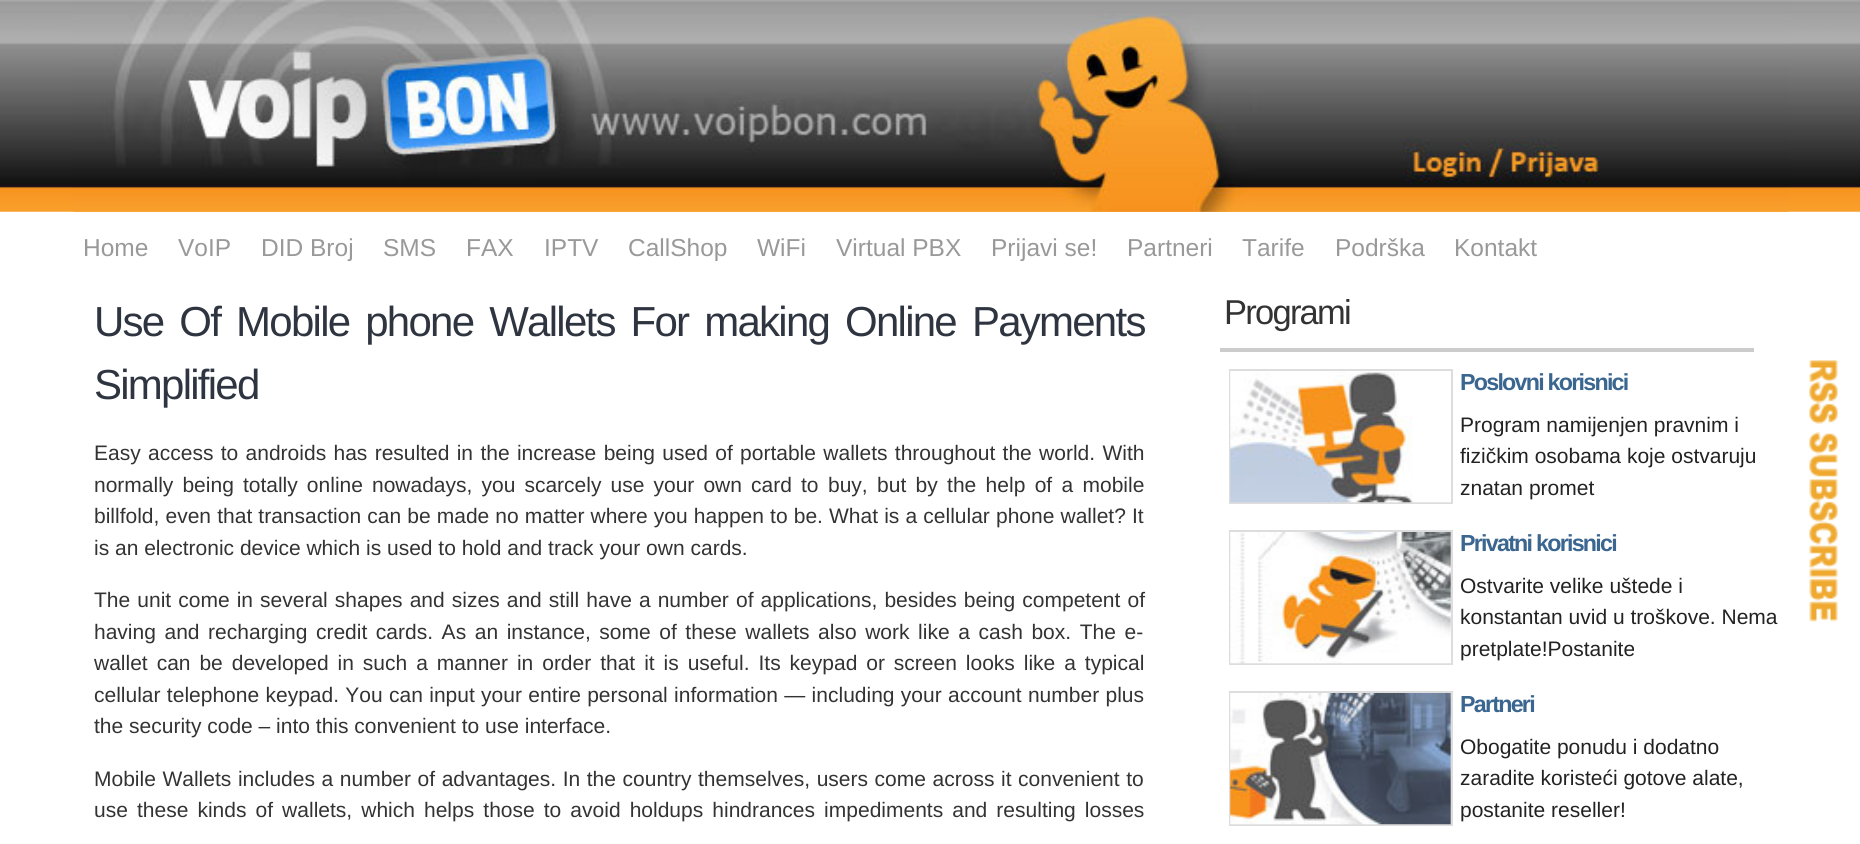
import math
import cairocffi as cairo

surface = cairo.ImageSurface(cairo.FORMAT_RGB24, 1860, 844)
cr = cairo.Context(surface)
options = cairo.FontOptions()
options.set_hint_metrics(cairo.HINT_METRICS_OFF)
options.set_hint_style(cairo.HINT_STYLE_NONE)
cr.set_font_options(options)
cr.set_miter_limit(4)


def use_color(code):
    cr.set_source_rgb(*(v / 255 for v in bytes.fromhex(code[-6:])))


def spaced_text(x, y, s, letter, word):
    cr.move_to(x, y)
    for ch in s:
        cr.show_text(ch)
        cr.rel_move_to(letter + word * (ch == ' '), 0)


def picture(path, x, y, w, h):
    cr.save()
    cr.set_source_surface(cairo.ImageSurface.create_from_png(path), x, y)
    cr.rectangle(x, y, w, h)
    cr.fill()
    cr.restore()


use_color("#ffffff")
cr.paint()
picture("img1.png", 0, 0, 1860, 212)
picture("img2.png", 73, 0, 1716, 212)
cr.select_font_face("Liberation Sans")
cr.set_font_size(24.5)
use_color("#999999")
cr.move_to(83, 256)
cr.show_text("Home")
cr.move_to(178, 256)
cr.show_text("VoIP")
cr.move_to(261, 256)
cr.show_text("DID Broj")
cr.move_to(383, 256)
cr.show_text("SMS")
cr.move_to(466, 256)
cr.show_text("FAX")
cr.move_to(544, 256)
cr.show_text("IPTV")
cr.move_to(628, 256)
cr.show_text("CallShop")
cr.move_to(757, 256)
cr.show_text("WiFi")
cr.move_to(836, 256)
cr.show_text("Virtual PBX")
cr.move_to(991, 256)
cr.show_text("Prijavi se!")
cr.move_to(1127, 256)
cr.show_text("Partneri")
cr.move_to(1242, 256)
cr.show_text("Tarife")
cr.move_to(1335, 256)
cr.show_text("Podrška")
cr.move_to(1454, 256)
cr.show_text("Kontakt")
cr.set_font_size(42)
use_color("#2f3540")
spaced_text(94, 336, "Use Of Mobile phone Wallets For making Online Payments", -1.75, 6)
spaced_text(94, 399, "Simplified", -1.75, 0)
cr.set_font_size(21)
use_color("#333333")
spaced_text(94, 460, "Easy access to androids has resulted in the increase being used of portable wallets throughout the world. With", 0, 1.5)
spaced_text(94, 492, "normally being totally online nowadays, you scarcely use your own card to", 0, 3.25)
spaced_text(828, 492, "buy, but by the help of a mobile", 0, 3.5)
spaced_text(94, 523, "billfold, even that transaction can be made no matter where you happen to be. What is a cellular phone wallet? It", 0, 0.3)
cr.move_to(94, 555)
cr.show_text("is an electronic device which is used to hold and track your own cards.")
spaced_text(94, 607, "The unit come in several shapes and sizes and still have a number of applications, besides being competent of", 0, 1.25)
spaced_text(94, 639, "having and recharging credit cards. As an instance, some of these wallets also work like a cash box. The e-", 0, 2.75)
spaced_text(94, 670, "wallet can be developed in such a manner in order that it is useful. Its keypad or screen looks like a typical", 0, 3.1)
spaced_text(94, 702, "cellular telephone keypad. You can input your entire personal information — including your account number plus", 0, 0.5)
cr.move_to(94, 733)
cr.show_text("the security code – into this convenient to use interface.")
spaced_text(94, 786, "Mobile Wallets includes a number of advantages. In the country themselves, users come across it convenient to", 0, 0.75)
spaced_text(94, 817, "use these kinds of wallets, which helps those to avoid holdups hindrances impediments and resulting losses", 0, 3.25)
use_color("#cccccc")
cr.rectangle(1220, 348, 534, 4)
cr.fill()
cr.set_font_size(34.5)
use_color("#333333")
spaced_text(1224, 324, "Programi", -1.75, 0)
cr.rectangle(1230, 370, 222, 133)
use_color("#dddddd")
cr.stroke()
picture("img3.png", 1230, 371, 221, 132)
cr.select_font_face("Liberation Sans", cairo.FONT_SLANT_NORMAL, cairo.FONT_WEIGHT_BOLD)
cr.set_font_size(23.25)
use_color("#3a6690")
spaced_text(1460, 390, "Poslovni korisnici", -1.75, 0)
cr.select_font_face("Liberation Sans")
cr.set_font_size(21)
use_color("#222222")
cr.move_to(1460, 432)
cr.show_text("Program namijenjen pravnim i")
cr.move_to(1460, 463)
cr.show_text("fizičkim osobama koje ostvaruju")
cr.move_to(1460, 495)
cr.show_text("znatan promet")
cr.rectangle(1230, 531, 222, 133)
use_color("#dddddd")
cr.stroke()
picture("img4.png", 1230, 532, 221, 132)
cr.select_font_face("Liberation Sans", cairo.FONT_SLANT_NORMAL, cairo.FONT_WEIGHT_BOLD)
cr.set_font_size(23.25)
use_color("#3a6690")
spaced_text(1460, 551, "Privatni korisnici", -1.75, 0)
cr.select_font_face("Liberation Sans")
cr.set_font_size(21)
use_color("#222222")
cr.move_to(1460, 593)
cr.show_text("Ostvarite velike uštede i")
cr.move_to(1460, 624)
cr.show_text("konstantan uvid u troškove. Nema")
cr.move_to(1460, 656)
cr.show_text("pretplate!Postanite")
cr.rectangle(1230, 692, 222, 133)
use_color("#dddddd")
cr.stroke()
picture("img5.png", 1230, 693, 221, 132)
cr.select_font_face("Liberation Sans", cairo.FONT_SLANT_NORMAL, cairo.FONT_WEIGHT_BOLD)
cr.set_font_size(23.25)
use_color("#3a6690")
spaced_text(1460, 712, "Partneri", -1.75, 0)
cr.select_font_face("Liberation Sans")
cr.set_font_size(21)
use_color("#222222")
cr.move_to(1460, 754)
cr.show_text("Obogatite ponudu i dodatno")
cr.move_to(1460, 785)
cr.show_text("zaradite koristeći gotove alate,")
cr.move_to(1460, 817)
cr.show_text("postanite reseller!")
picture("img6.png", 1809, 360, 29, 262)
surface.write_to_png("result.png")
